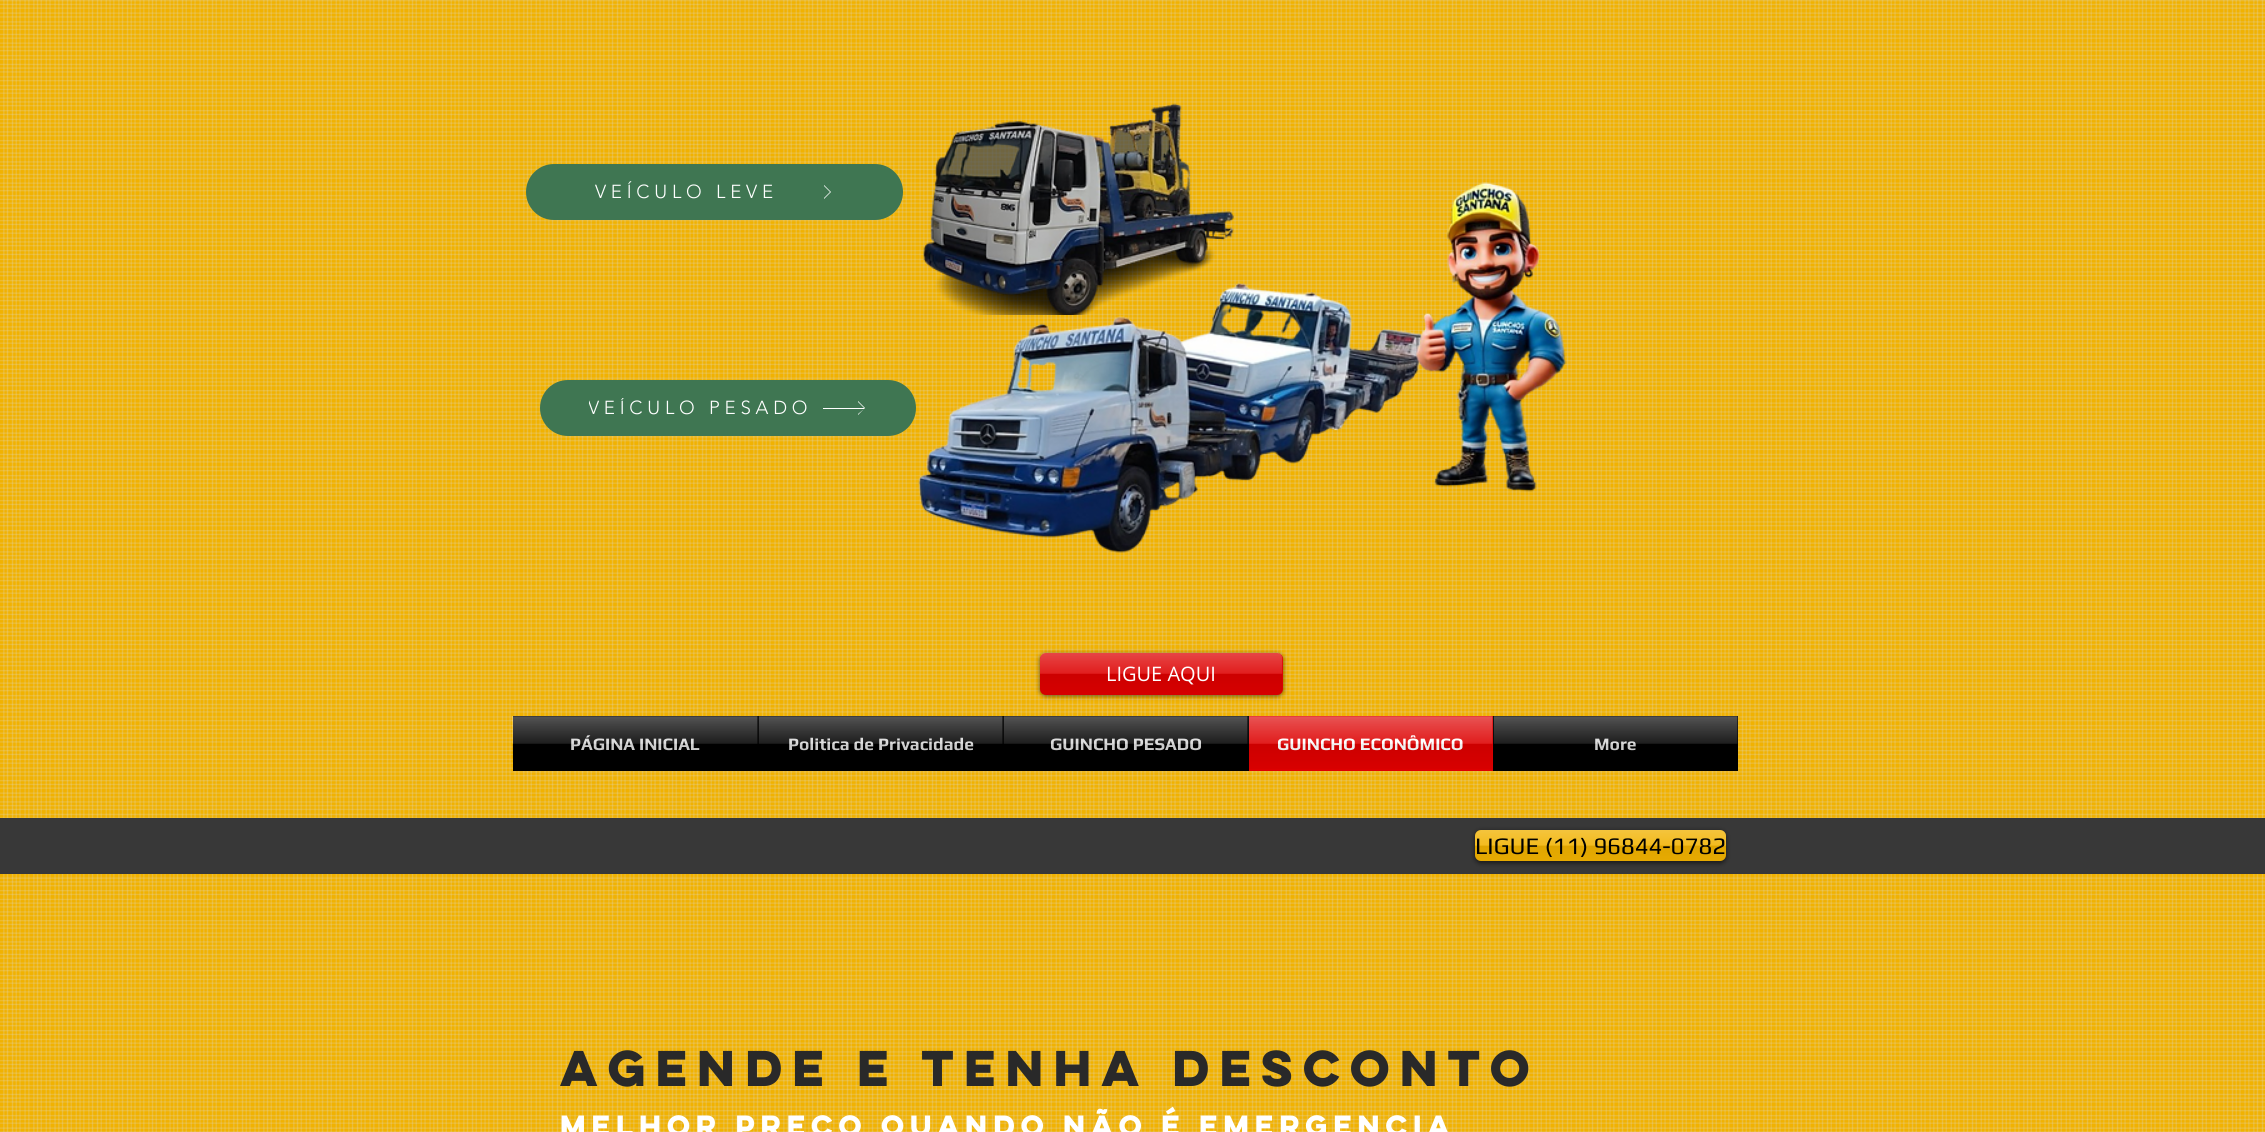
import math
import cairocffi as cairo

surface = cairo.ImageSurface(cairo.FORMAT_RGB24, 2265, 1132)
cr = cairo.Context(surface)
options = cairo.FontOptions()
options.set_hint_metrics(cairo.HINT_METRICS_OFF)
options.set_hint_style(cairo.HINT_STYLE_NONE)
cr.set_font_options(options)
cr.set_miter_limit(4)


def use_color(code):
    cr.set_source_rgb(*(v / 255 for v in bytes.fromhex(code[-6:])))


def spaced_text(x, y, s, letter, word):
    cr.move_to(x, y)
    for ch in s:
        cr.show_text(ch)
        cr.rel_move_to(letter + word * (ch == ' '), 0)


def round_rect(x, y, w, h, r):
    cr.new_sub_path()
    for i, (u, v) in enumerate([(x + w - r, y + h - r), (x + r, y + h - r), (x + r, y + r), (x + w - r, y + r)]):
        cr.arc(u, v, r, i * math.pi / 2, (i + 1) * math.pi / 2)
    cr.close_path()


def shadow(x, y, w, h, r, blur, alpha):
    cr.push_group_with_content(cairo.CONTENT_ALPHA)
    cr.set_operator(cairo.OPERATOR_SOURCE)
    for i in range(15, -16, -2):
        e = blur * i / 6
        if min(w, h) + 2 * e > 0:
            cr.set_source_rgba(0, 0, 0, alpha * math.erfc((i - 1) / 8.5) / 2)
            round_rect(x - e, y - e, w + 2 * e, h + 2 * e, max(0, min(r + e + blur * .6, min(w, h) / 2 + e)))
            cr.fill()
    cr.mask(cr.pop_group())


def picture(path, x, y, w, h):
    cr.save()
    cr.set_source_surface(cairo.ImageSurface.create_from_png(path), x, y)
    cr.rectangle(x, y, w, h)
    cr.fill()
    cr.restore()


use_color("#f1b201")
cr.paint()
picture("img1.png", 0, 0, 2265, 1132)
use_color("#3f7652")
round_rect(526, 164, 377, 56, 28)
cr.fill()
cr.select_font_face("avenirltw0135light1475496 Light")
cr.set_font_size(18.75)
use_color("#ffffff")
spaced_text(595, 198, "VEÍCULO LEVE", 4.75, 0)
cr.new_path()
cr.move_to(824, 185)
cr.line_to(824, 186)
cr.line_to(830, 192)
cr.line_to(790, 192)
cr.line_to(830, 192)
cr.line_to(824, 198)
cr.line_to(824, 199)
cr.line_to(831, 192)
cr.close_path()
cr.fill()
picture("img2.png", 923, 103, 311, 212)
picture("img4.png", 918, 282, 505, 271)
picture("img3.png", 1415, 182, 152, 310)
use_color("#3f7652")
round_rect(540, 380, 376, 56, 28)
cr.fill()
cr.save()
cr.rectangle(589, 398, 222, 22)
cr.clip()
use_color("#ffffff")
spaced_text(588, 414, "VEÍCULO PESADO", 4.75, 0)
cr.restore()
use_color("#ffffff")
cr.new_path()
cr.move_to(858, 401)
cr.line_to(858, 402)
cr.line_to(864, 408)
cr.line_to(823, 408)
cr.line_to(823, 409)
cr.line_to(864, 409)
cr.line_to(858, 414)
cr.line_to(858, 415)
cr.line_to(865, 408)
cr.close_path()
cr.fill()
use_color("#000000")
shadow(1040, 654, 243, 42, 6, 2.5, 0.6)
use_color("#dd0000")
round_rect(1040, 653, 243, 42, 6)
cr.fill()
picture("img5.png", 1040, 652, 243, 43)
cr.select_font_face("Open Sans")
cr.set_font_size(20)
use_color("#ffffff")
cr.move_to(1106, 681)
cr.show_text("LIGUE AQUI")
picture("img6.png", 512, 716, 1, 42)
use_color("#000000")
cr.rectangle(513, 716, 736, 55)
cr.fill()
cr.select_font_face("Play", cairo.FONT_SLANT_NORMAL, cairo.FONT_WEIGHT_BOLD)
cr.set_font_size(17.5)
use_color("#d9d9d9")
cr.move_to(570, 750)
cr.show_text("PÁGINA INICIAL")
picture("img7.png", 512, 716, 246, 46)
cr.move_to(788, 750)
cr.show_text("Politica de Privacidade")
picture("img8.png", 758, 716, 245, 34)
cr.move_to(1050, 750)
cr.show_text("GUINCHO PESADO")
picture("img9.png", 1003, 716, 245, 34)
use_color("#dd0000")
cr.rectangle(1249, 716, 244, 55)
cr.fill()
use_color("#ffffff")
cr.move_to(1277, 750)
cr.show_text("GUINCHO ECONÔMICO")
picture("img10.png", 1248, 716, 245, 53)
use_color("#000000")
cr.rectangle(1493, 716, 245, 55)
cr.fill()
use_color("#d9d9d9")
cr.move_to(1594, 750)
cr.show_text("More")
picture("img11.png", 1493, 716, 245, 34)
use_color("#383838")
cr.rectangle(0, 818, 2265, 56)
cr.fill()
use_color("#000000")
shadow(1475, 831, 251, 32, 6, 2.5, 0.6)
use_color("#f1b201")
round_rect(1475, 830, 251, 31, 6)
cr.fill()
picture("img12.png", 1475, 830, 251, 31)
cr.select_font_face("Play")
cr.set_font_size(23.75)
use_color("#000000")
cr.move_to(1475, 854)
cr.show_text("LIGUE (11) 96844-0782")
cr.select_font_face("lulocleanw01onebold", cairo.FONT_SLANT_NORMAL, cairo.FONT_WEIGHT_BOLD)
cr.set_font_size(45)
use_color("#292929")
cr.move_to(560, 1086)
cr.show_text("agende e tenha desconto")
cr.set_font_size(26.25)
use_color("#ffffff")
cr.move_to(560, 1136)
cr.show_text("melhor preço quando não é emergencia")
surface.write_to_png("result.png")
